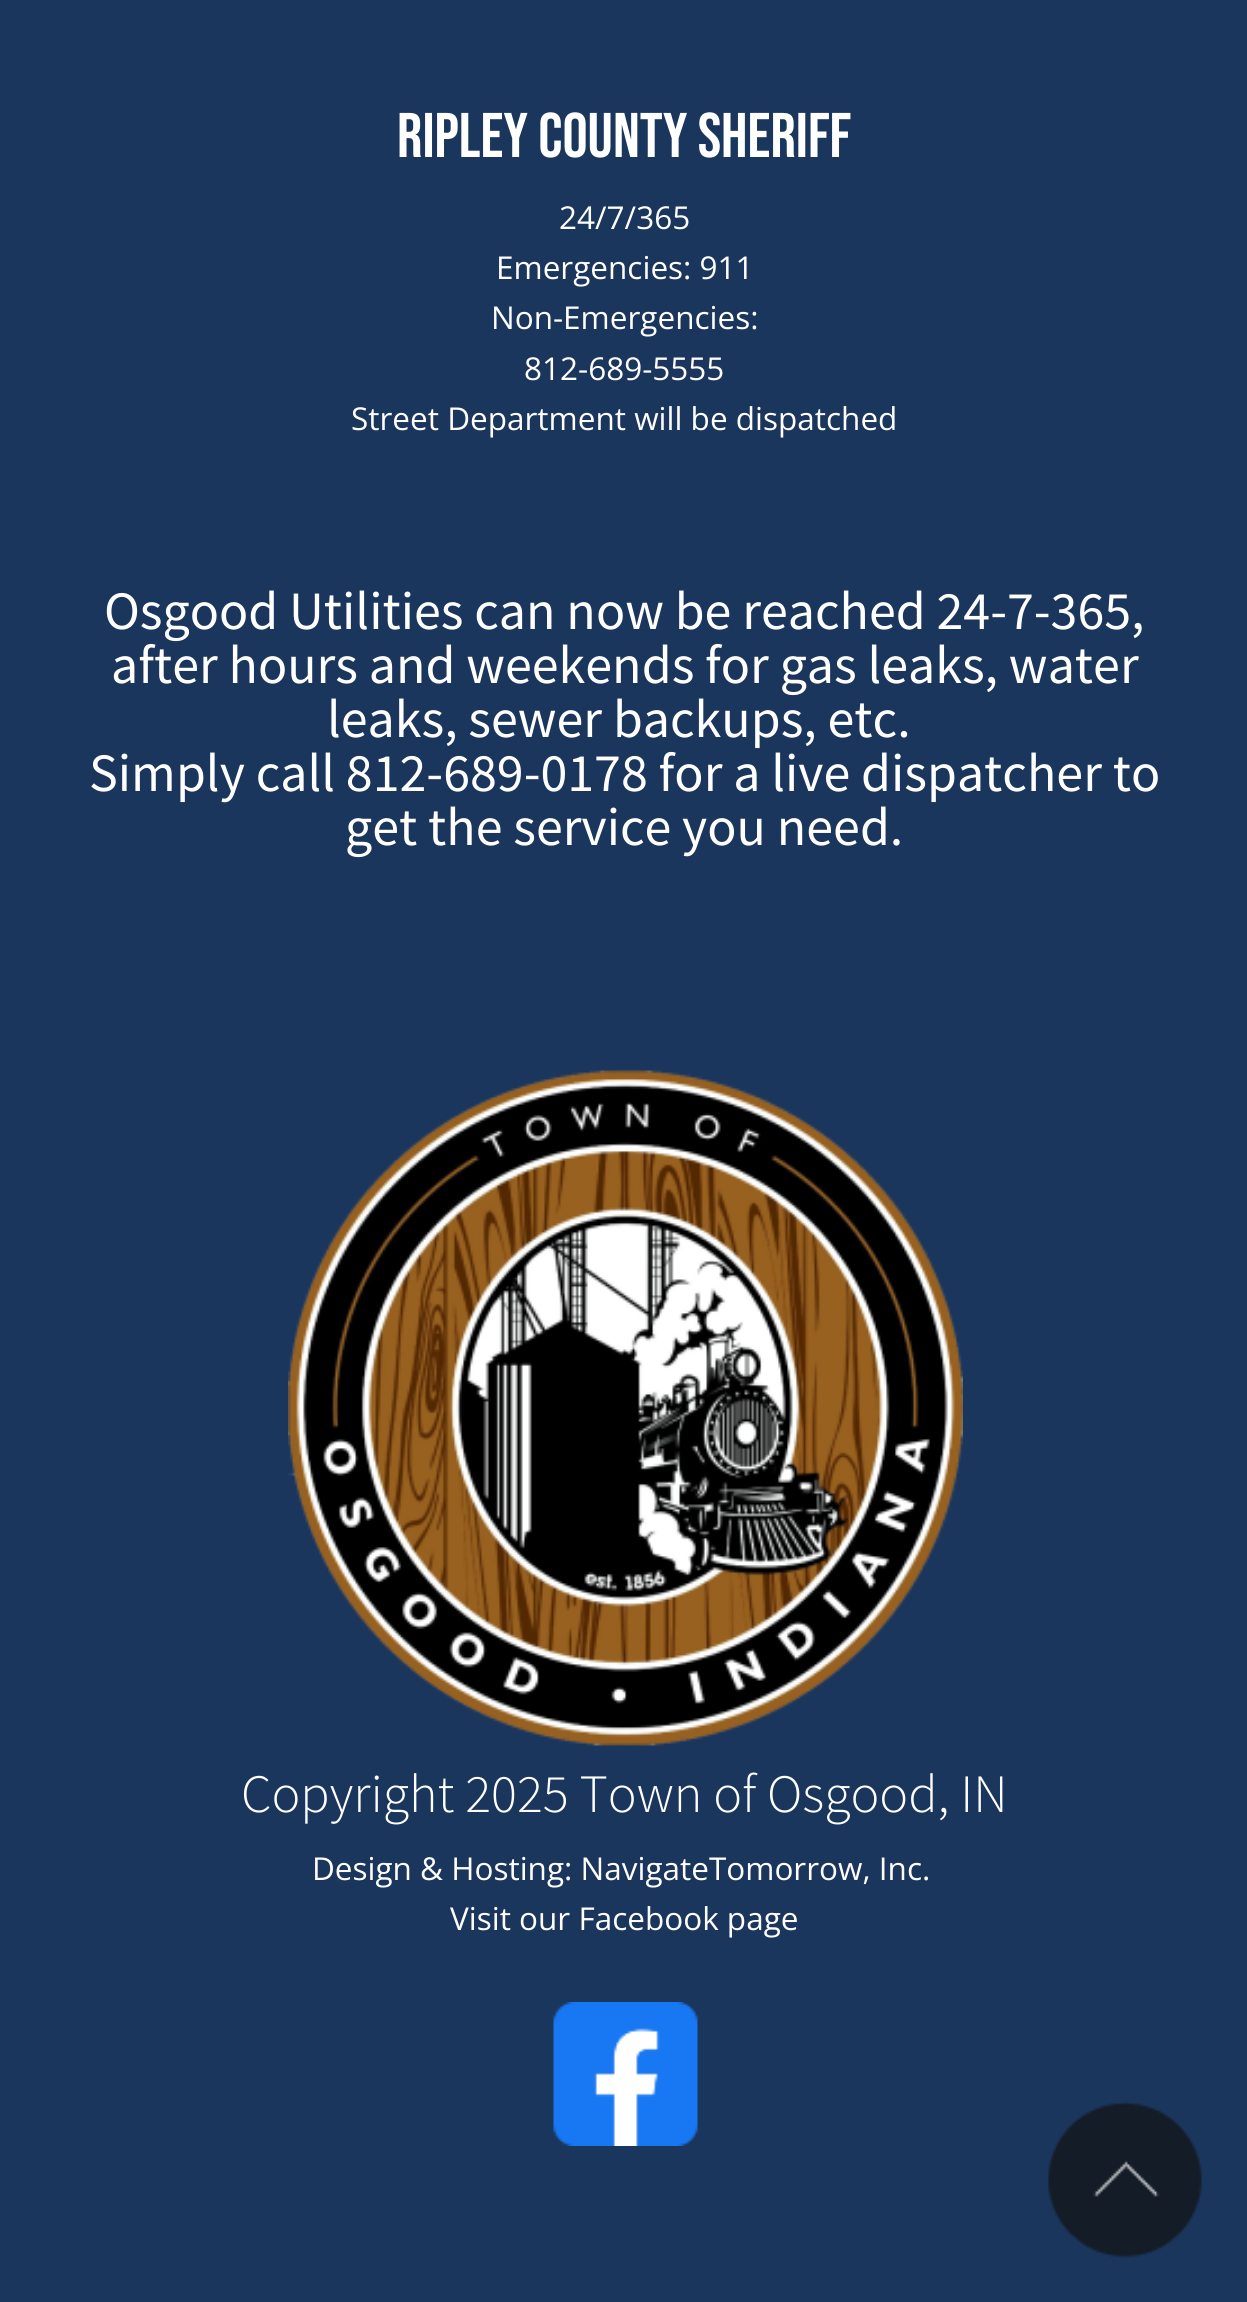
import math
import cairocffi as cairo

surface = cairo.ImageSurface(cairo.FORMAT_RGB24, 1247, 2302)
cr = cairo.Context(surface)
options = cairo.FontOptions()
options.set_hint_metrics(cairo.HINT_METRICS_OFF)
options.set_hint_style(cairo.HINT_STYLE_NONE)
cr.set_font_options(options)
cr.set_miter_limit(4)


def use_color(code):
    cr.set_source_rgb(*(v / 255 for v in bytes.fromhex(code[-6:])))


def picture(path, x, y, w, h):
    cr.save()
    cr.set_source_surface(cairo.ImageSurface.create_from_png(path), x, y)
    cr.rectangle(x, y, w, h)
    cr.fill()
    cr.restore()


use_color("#1b365d")
cr.paint()
cr.select_font_face("Bebas Neue")
cr.set_font_size(63)
use_color("#ffffff")
cr.move_to(397, 157)
cr.show_text("Ripley County Sheriff")
cr.select_font_face("Open Sans")
cr.set_font_size(31.5)
cr.move_to(559, 229)
cr.show_text("24/7/365")
cr.move_to(496, 279)
cr.show_text("Emergencies: 911")
cr.move_to(491, 329)
cr.show_text("Non-Emergencies:")
cr.move_to(524, 380)
cr.show_text("812-689-5555")
cr.move_to(351, 430)
cr.show_text("Street Department will be dispatched")
cr.select_font_face("Source Sans Pro")
cr.set_font_size(54)
cr.move_to(104, 629)
cr.show_text("Osgood Utilities can now be reached 24-7-365,")
cr.move_to(111, 683)
cr.show_text("after hours and weekends for gas leaks, water")
cr.move_to(327, 737)
cr.show_text("leaks, sewer backups, etc.")
cr.move_to(89, 791)
cr.show_text("Simply call 812-689-0178 for a live dispatcher to")
cr.move_to(345, 845)
cr.show_text("get the service you need.")
picture("img1.png", 288, 1070, 675, 676)
cr.select_font_face("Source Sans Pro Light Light")
cr.move_to(241, 1812)
cr.show_text("Copyright 2025 Town of Osgood, IN")
cr.select_font_face("Open Sans")
cr.set_font_size(31.5)
cr.move_to(312, 1880)
cr.show_text("Design & Hosting: NavigateTomorrow, Inc.")
cr.move_to(450, 1930)
cr.show_text("Visit our Facebook page")
picture("img2.png", 553, 2002, 145, 144)
picture("img3.png", 1048, 2101, 154, 157)
surface.write_to_png("result.png")
